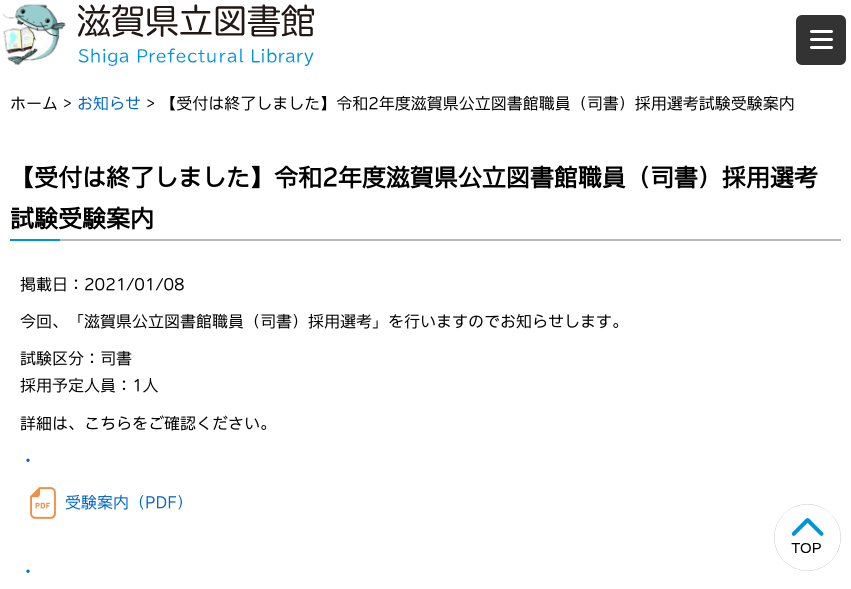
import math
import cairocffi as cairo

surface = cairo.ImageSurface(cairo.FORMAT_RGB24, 851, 589)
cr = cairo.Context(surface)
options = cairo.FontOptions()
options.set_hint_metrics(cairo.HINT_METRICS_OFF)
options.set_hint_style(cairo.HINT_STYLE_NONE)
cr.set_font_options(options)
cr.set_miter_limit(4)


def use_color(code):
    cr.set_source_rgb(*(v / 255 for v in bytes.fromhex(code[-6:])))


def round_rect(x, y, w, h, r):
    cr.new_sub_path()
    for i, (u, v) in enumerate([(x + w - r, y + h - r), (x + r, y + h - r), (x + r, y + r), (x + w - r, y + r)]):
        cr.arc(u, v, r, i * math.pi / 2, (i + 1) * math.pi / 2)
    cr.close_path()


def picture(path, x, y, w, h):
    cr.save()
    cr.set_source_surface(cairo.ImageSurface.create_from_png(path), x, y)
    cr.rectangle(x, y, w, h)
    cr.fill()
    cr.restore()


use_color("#ffffff")
cr.paint()
picture("img1.png", 2, 4, 64, 62)
picture("img2.png", 78, 4, 237, 62)
use_color("#333333")
round_rect(796, 15, 50, 50, 6)
cr.fill()
use_color("#ffffff")
round_rect(810, 30, 23, 3, 1.5)
cr.fill()
round_rect(810, 38, 23, 3, 1.5)
cr.fill()
round_rect(810, 46, 23, 3, 1.5)
cr.fill()
cr.select_font_face("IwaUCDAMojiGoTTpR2")
cr.set_font_size(16)
use_color("#000000")
cr.move_to(10, 109)
cr.show_text("ホーム >")
use_color("#0066cc")
cr.move_to(77, 109)
cr.show_text("お知らせ")
use_color("#000000")
cr.move_to(146, 109)
cr.show_text("> 【受付は終了しました】令和2年度滋賀県公立図書館職員（司書）採用選考試験受験案内")
use_color("#b9b9b9")
cr.rectangle(60, 239, 781, 2)
cr.fill()
cr.select_font_face("IwaUCDAMojiGoTTpR2", cairo.FONT_SLANT_NORMAL, cairo.FONT_WEIGHT_BOLD)
cr.set_font_size(24)
use_color("#000000")
cr.move_to(10, 186)
cr.show_text("【受付は終了しました】令和2年度滋賀県公立図書館職員（司書）採用選考")
cr.move_to(10, 227)
cr.show_text("試験受験案内")
use_color("#0094db")
cr.rectangle(10, 239, 50, 2)
cr.fill()
cr.select_font_face("IwaUCDAMojiGoTTpR2")
cr.set_font_size(16)
use_color("#000000")
cr.move_to(20, 290)
cr.show_text("掲載日：2021/01/08")
cr.move_to(20, 327)
cr.show_text("今回、「滋賀県公立図書館職員（司書）採用選考」を行いますのでお知らせします。")
cr.move_to(20, 364)
cr.show_text("試験区分：司書")
cr.move_to(20, 391)
cr.show_text("採用予定人員：1人")
cr.move_to(20, 429)
cr.show_text("詳細は、こちらをご確認ください。")
use_color("#0066cc")
cr.move_to(20, 466)
cr.show_text("・")
picture("img3.png", 30, 487, 26, 32)
cr.move_to(65, 508)
cr.show_text("受験案内（PDF）")
cr.move_to(20, 577)
cr.show_text("・")
picture("img4.png", 774, 504, 67, 67)
surface.write_to_png("result.png")
